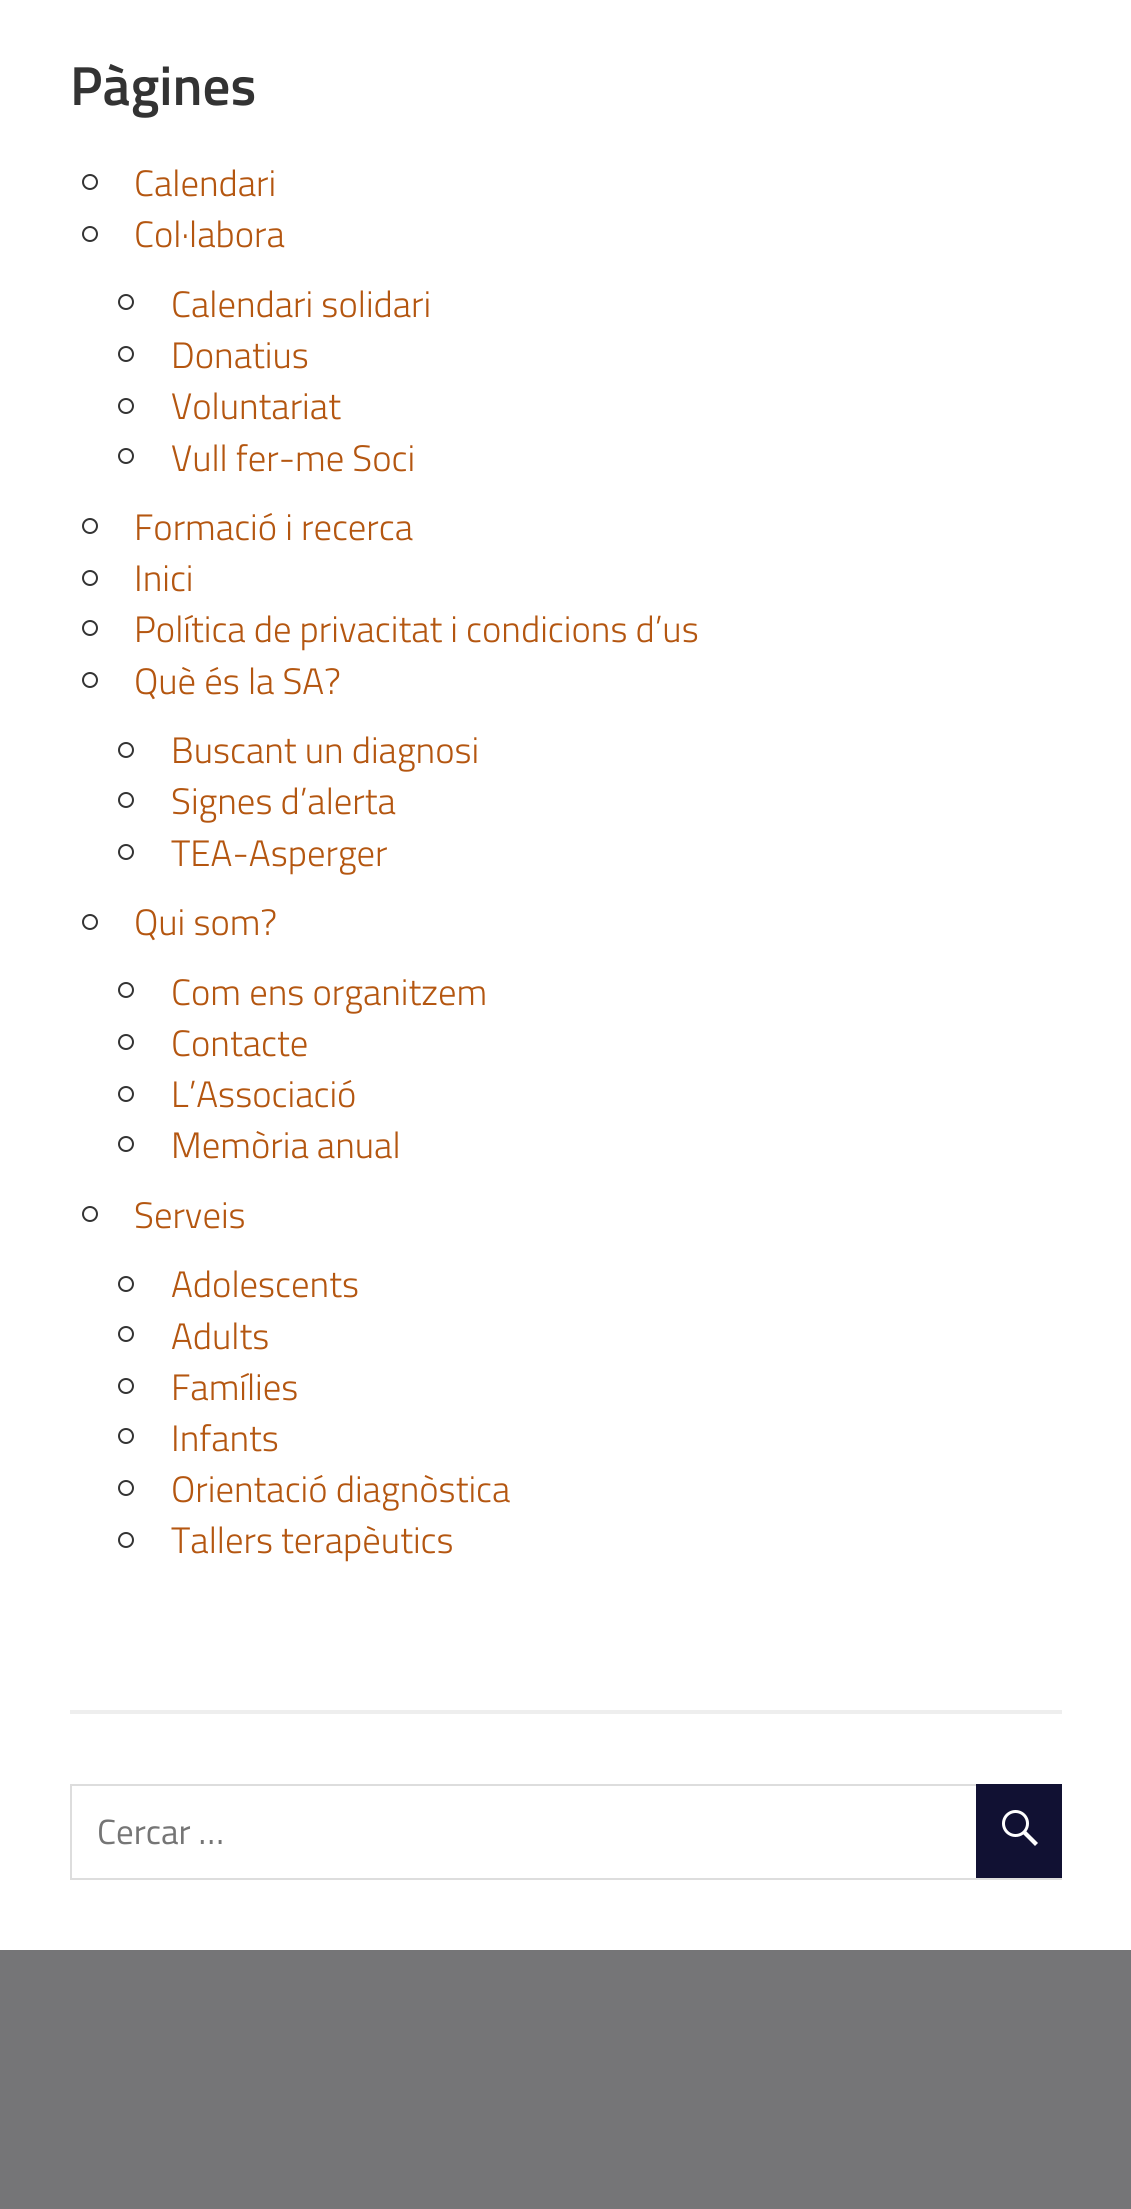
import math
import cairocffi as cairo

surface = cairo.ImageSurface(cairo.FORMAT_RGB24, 1131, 2209)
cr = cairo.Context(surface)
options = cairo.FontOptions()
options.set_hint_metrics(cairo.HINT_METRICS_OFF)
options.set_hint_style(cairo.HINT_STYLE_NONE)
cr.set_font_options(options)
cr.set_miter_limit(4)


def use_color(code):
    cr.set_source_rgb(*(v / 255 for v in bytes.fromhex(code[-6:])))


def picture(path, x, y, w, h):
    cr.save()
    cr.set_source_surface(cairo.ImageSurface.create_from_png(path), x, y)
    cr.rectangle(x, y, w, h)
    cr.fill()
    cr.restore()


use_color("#ffffff")
cr.paint()
cr.select_font_face("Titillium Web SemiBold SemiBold")
cr.set_font_size(55)
use_color("#333333")
cr.move_to(70, 105)
cr.show_text("Pàgines")
cr.new_path()
cr.arc(90, 182, 7, 0, 2 * math.pi)
cr.stroke()
cr.select_font_face("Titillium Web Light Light")
cr.set_font_size(36.75)
use_color("#b45610")
cr.move_to(134, 196)
cr.show_text("Calendari")
cr.new_path()
cr.arc(90, 234, 7, 0, 2 * math.pi)
use_color("#333333")
cr.stroke()
use_color("#b45610")
cr.move_to(134, 247)
cr.show_text("Col·labora")
cr.new_path()
cr.arc(126, 302, 7, 0, 2 * math.pi)
use_color("#333333")
cr.stroke()
use_color("#b45610")
cr.move_to(171, 317)
cr.show_text("Calendari solidari")
cr.new_path()
cr.arc(126, 354, 7, 0, 2 * math.pi)
use_color("#333333")
cr.stroke()
use_color("#b45610")
cr.move_to(171, 368)
cr.show_text("Donatius")
cr.new_path()
cr.arc(126, 406, 7, 0, 2 * math.pi)
use_color("#333333")
cr.stroke()
use_color("#b45610")
cr.move_to(171, 419)
cr.show_text("Voluntariat")
cr.new_path()
cr.arc(126, 456, 7, 0, 2 * math.pi)
use_color("#333333")
cr.stroke()
use_color("#b45610")
cr.move_to(171, 471)
cr.show_text("Vull fer-me Soci")
cr.new_path()
cr.arc(90, 526, 7, 0, 2 * math.pi)
use_color("#333333")
cr.stroke()
use_color("#b45610")
cr.move_to(134, 540)
cr.show_text("Formació i recerca")
cr.new_path()
cr.arc(90, 578, 7, 0, 2 * math.pi)
use_color("#333333")
cr.stroke()
use_color("#b45610")
cr.move_to(134, 591)
cr.show_text("Inici")
cr.new_path()
cr.arc(90, 628, 7, 0, 2 * math.pi)
use_color("#333333")
cr.stroke()
use_color("#b45610")
cr.move_to(134, 642)
cr.show_text("Política de privacitat i condicions d’us")
cr.new_path()
cr.arc(90, 680, 7, 0, 2 * math.pi)
use_color("#333333")
cr.stroke()
use_color("#b45610")
cr.move_to(134, 694)
cr.show_text("Què és la SA?")
cr.new_path()
cr.arc(126, 750, 7, 0, 2 * math.pi)
use_color("#333333")
cr.stroke()
use_color("#b45610")
cr.move_to(171, 763)
cr.show_text("Buscant un diagnosi")
cr.new_path()
cr.arc(126, 800, 7, 0, 2 * math.pi)
use_color("#333333")
cr.stroke()
use_color("#b45610")
cr.move_to(171, 814)
cr.show_text("Signes d’alerta")
cr.new_path()
cr.arc(126, 852, 7, 0, 2 * math.pi)
use_color("#333333")
cr.stroke()
use_color("#b45610")
cr.move_to(171, 866)
cr.show_text("TEA-Asperger")
cr.new_path()
cr.arc(90, 922, 7, 0, 2 * math.pi)
use_color("#333333")
cr.stroke()
use_color("#b45610")
cr.move_to(134, 935)
cr.show_text("Qui som?")
cr.new_path()
cr.arc(126, 990, 7, 0, 2 * math.pi)
use_color("#333333")
cr.stroke()
use_color("#b45610")
cr.move_to(171, 1005)
cr.show_text("Com ens organitzem")
cr.new_path()
cr.arc(126, 1042, 7, 0, 2 * math.pi)
use_color("#333333")
cr.stroke()
use_color("#b45610")
cr.move_to(171, 1056)
cr.show_text("Contacte")
cr.new_path()
cr.arc(126, 1094, 7, 0, 2 * math.pi)
use_color("#333333")
cr.stroke()
use_color("#b45610")
cr.move_to(171, 1107)
cr.show_text("L’Associació")
cr.new_path()
cr.arc(126, 1144, 7, 0, 2 * math.pi)
use_color("#333333")
cr.stroke()
use_color("#b45610")
cr.move_to(171, 1158)
cr.show_text("Memòria anual")
cr.new_path()
cr.arc(90, 1214, 7, 0, 2 * math.pi)
use_color("#333333")
cr.stroke()
use_color("#b45610")
cr.move_to(134, 1228)
cr.show_text("Serveis")
cr.new_path()
cr.arc(126, 1284, 7, 0, 2 * math.pi)
use_color("#333333")
cr.stroke()
use_color("#b45610")
cr.move_to(171, 1297)
cr.show_text("Adolescents")
cr.new_path()
cr.arc(126, 1334, 7, 0, 2 * math.pi)
use_color("#333333")
cr.stroke()
use_color("#b45610")
cr.move_to(171, 1349)
cr.show_text("Adults")
cr.new_path()
cr.arc(126, 1386, 7, 0, 2 * math.pi)
use_color("#333333")
cr.stroke()
use_color("#b45610")
cr.move_to(171, 1400)
cr.show_text("Famílies")
cr.new_path()
cr.arc(126, 1436, 7, 0, 2 * math.pi)
use_color("#333333")
cr.stroke()
use_color("#b45610")
cr.move_to(171, 1451)
cr.show_text("Infants")
cr.new_path()
cr.arc(126, 1488, 7, 0, 2 * math.pi)
use_color("#333333")
cr.stroke()
use_color("#b45610")
cr.move_to(171, 1502)
cr.show_text("Orientació diagnòstica")
cr.new_path()
cr.arc(126, 1540, 7, 0, 2 * math.pi)
use_color("#333333")
cr.stroke()
use_color("#b45610")
cr.move_to(171, 1553)
cr.show_text("Tallers terapèutics")
use_color("#eeeeee")
cr.rectangle(70, 1710, 992, 4)
cr.fill()
cr.rectangle(71, 1785, 990, 94)
use_color("#dddddd")
cr.stroke()
cr.select_font_face("Titillium Web")
cr.set_font_size(35)
use_color("#757575")
cr.move_to(97, 1844)
cr.show_text("Cercar …")
use_color("#111133")
cr.rectangle(976, 1784, 86, 94)
cr.fill()
picture("img1.png", 1002, 1810, 36, 36)
use_color("#757577")
cr.rectangle(0, 1950, 1131, 259)
cr.fill()
surface.write_to_png("result.png")
